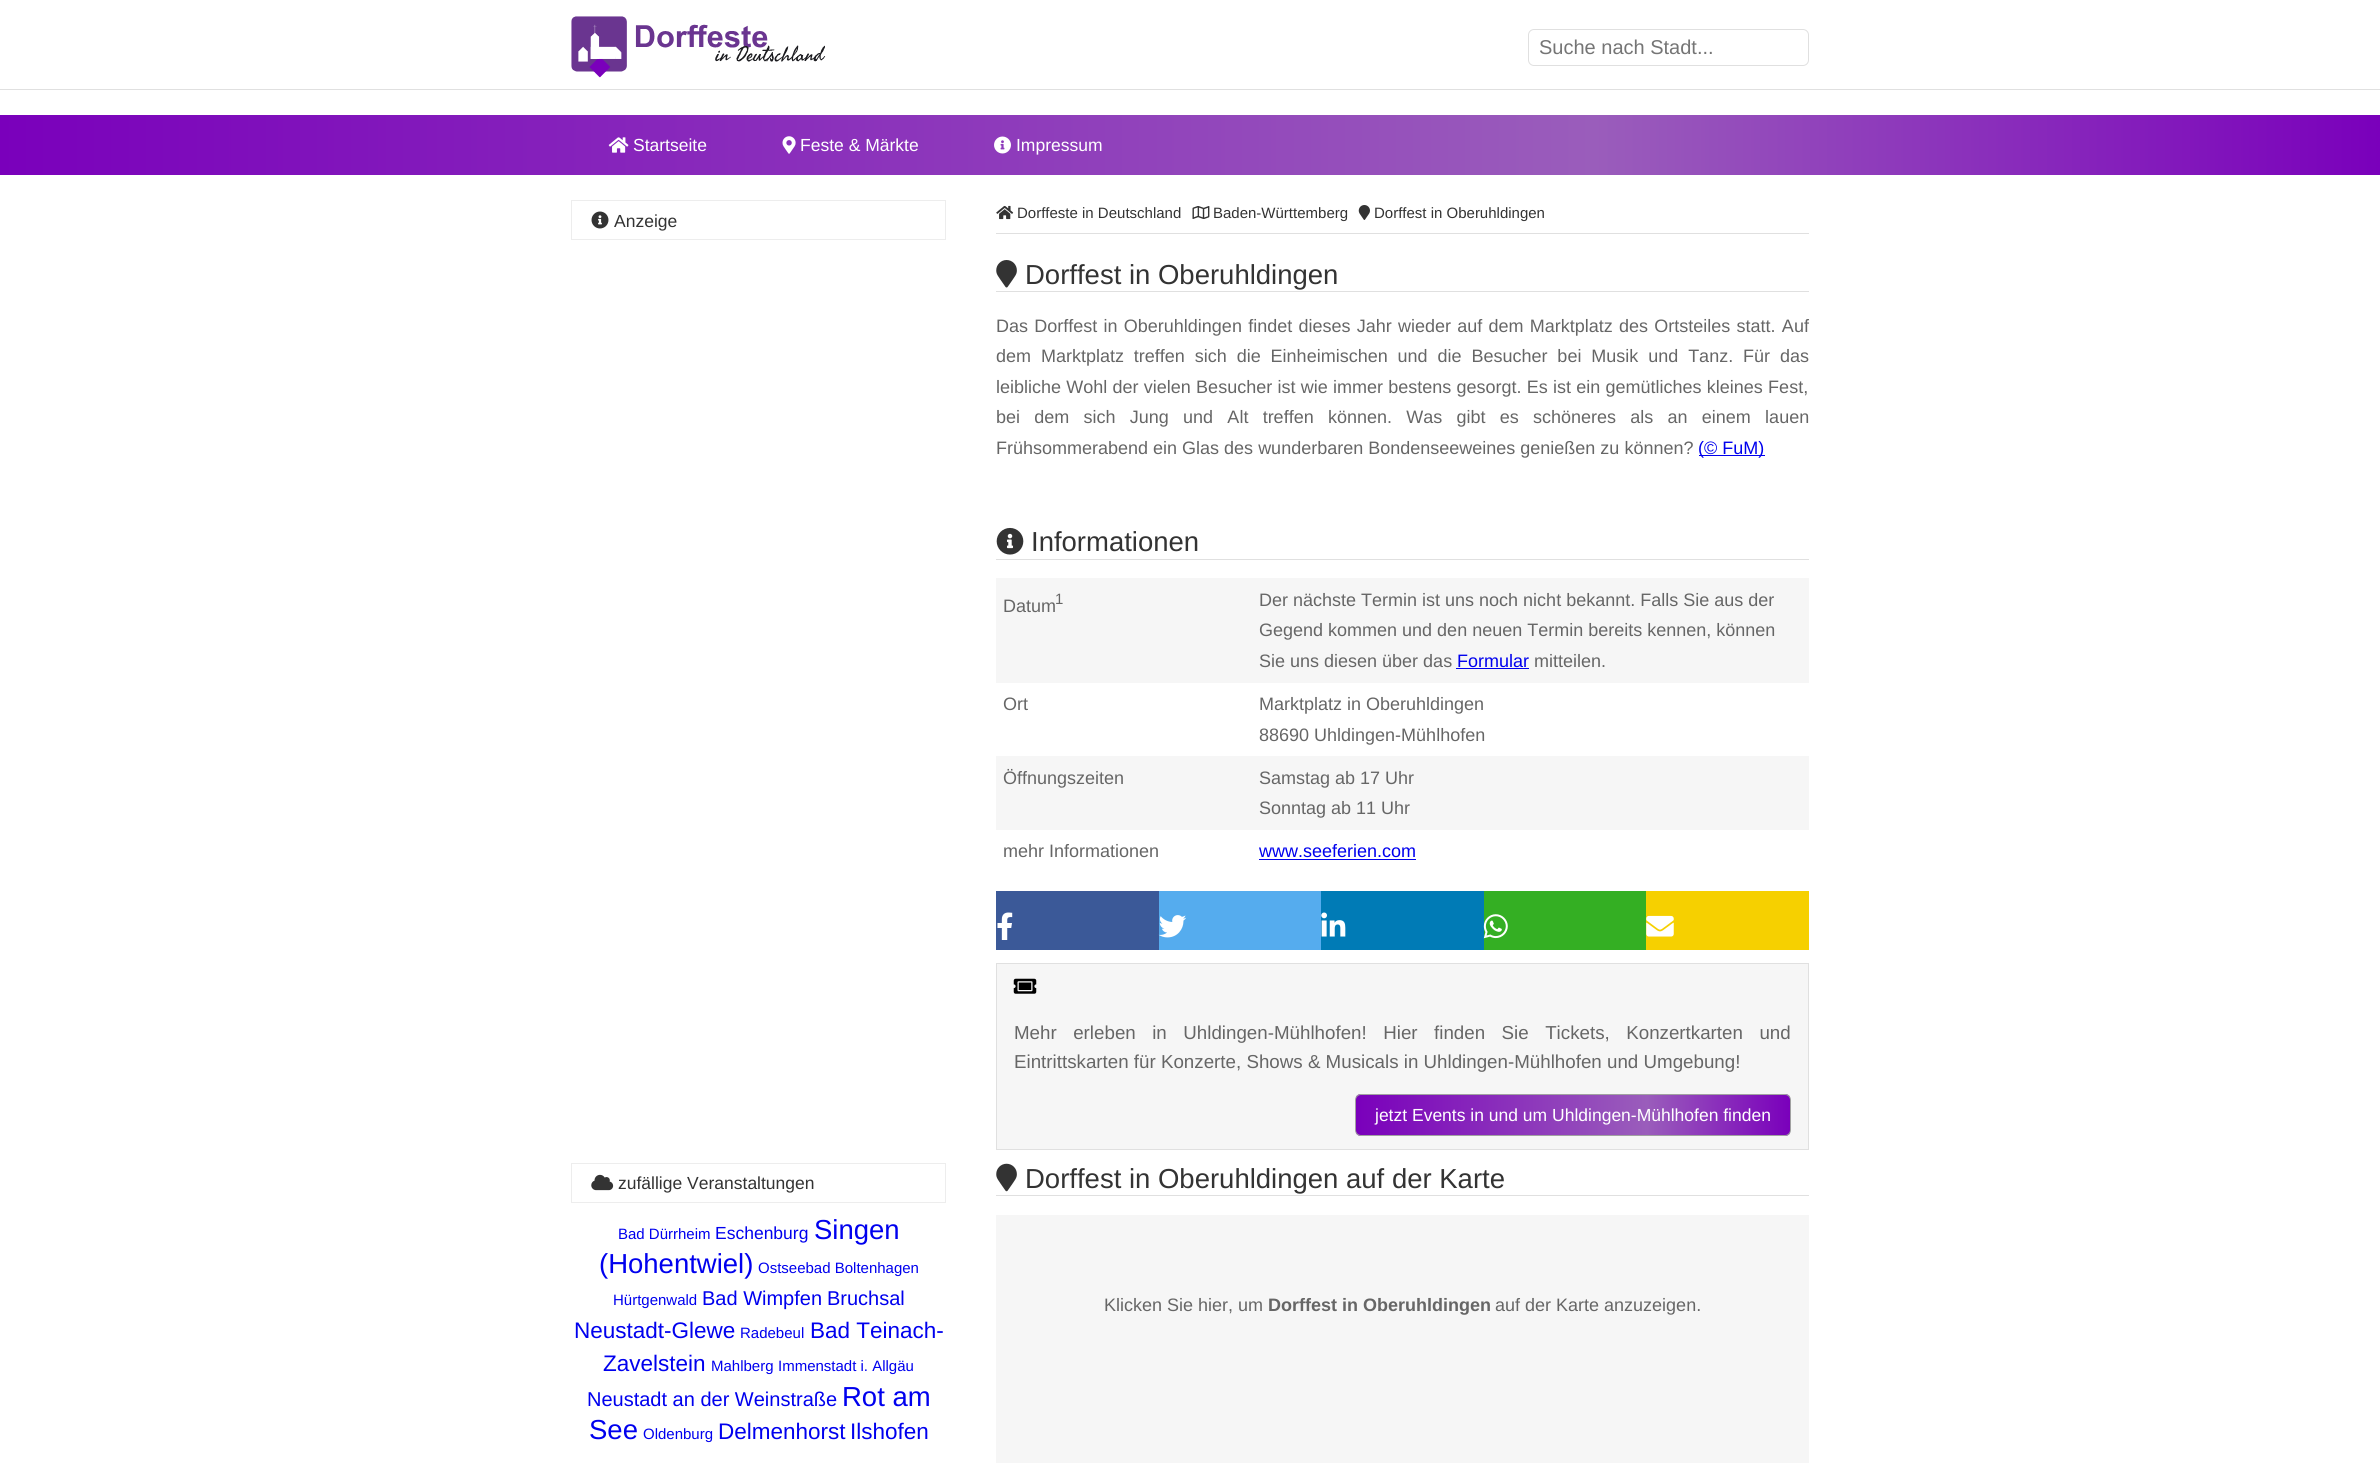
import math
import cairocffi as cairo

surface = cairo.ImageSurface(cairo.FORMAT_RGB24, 2380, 1463)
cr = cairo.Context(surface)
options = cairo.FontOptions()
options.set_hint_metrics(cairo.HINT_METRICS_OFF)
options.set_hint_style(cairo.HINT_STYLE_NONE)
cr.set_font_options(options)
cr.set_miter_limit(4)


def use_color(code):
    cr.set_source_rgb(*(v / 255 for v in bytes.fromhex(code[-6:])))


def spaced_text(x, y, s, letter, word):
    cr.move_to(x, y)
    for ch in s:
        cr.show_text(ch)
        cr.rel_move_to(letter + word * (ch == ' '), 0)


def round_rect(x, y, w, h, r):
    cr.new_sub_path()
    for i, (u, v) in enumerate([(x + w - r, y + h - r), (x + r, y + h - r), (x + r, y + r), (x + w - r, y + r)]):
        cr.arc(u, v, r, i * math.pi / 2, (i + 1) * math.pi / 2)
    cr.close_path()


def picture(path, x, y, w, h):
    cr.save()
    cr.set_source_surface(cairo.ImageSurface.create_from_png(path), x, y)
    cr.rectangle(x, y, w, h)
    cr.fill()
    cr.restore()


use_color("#ffffff")
cr.paint()
picture("img1.png", 571, 16, 255, 62)
round_rect(1528.5, 29.5, 280, 36, 5.5)
use_color("#e0e0e0")
cr.set_line_width(1)
cr.stroke()
cr.select_font_face("Liberation Sans")
cr.set_font_size(20)
use_color("#757575")
cr.move_to(1539, 54)
cr.show_text("Suche nach Stadt...")
use_color("#e0e0e0")
cr.rectangle(0, 89, 2380, 1)
cr.fill()
gradient = cairo.LinearGradient(0, 145, 2380, 145)
gradient.add_color_stop_rgba(0, 0.478, 0, 0.733, 1)
gradient.add_color_stop_rgba(0.67, 0.604, 0.365, 0.733, 1)
gradient.add_color_stop_rgba(1, 0.478, 0, 0.733, 1)
cr.set_source(gradient)
cr.rectangle(0, 115, 2380, 60)
cr.fill()
picture("img2.png", 608, 137, 21, 16)
cr.set_font_size(17.5)
use_color("#ffffff")
cr.move_to(633, 151)
cr.show_text("Startseite")
picture("img3.png", 782, 136, 14, 18)
cr.move_to(800, 151)
cr.show_text("Feste & Märkte")
picture("img4.png", 994, 136, 17, 18)
cr.move_to(1016, 151)
cr.show_text("Impressum")
cr.rectangle(571.5, 200.5, 374, 39)
use_color("#ededed")
cr.stroke()
picture("img5.png", 591, 211, 18, 18)
use_color("#333333")
cr.move_to(614, 227)
cr.show_text("Anzeige")
use_color("#e0e0e0")
cr.rectangle(996, 233, 813, 1)
cr.fill()
picture("img6.png", 996, 205, 18, 15)
cr.set_font_size(15)
use_color("#333333")
cr.move_to(1017, 218)
cr.show_text("Dorffeste in Deutschland")
picture("img7.png", 1192, 206, 18, 13)
cr.move_to(1213, 218)
cr.show_text("Baden-Württemberg")
picture("img8.png", 1358, 205, 12, 15)
cr.move_to(1374, 218)
cr.show_text("Dorffest in Oberuhldingen")
use_color("#e0e0e0")
cr.rectangle(996, 291, 813, 1)
cr.fill()
picture("img9.png", 996, 260, 21, 28)
cr.set_font_size(27.5)
use_color("#333333")
cr.move_to(1025, 284)
cr.show_text("Dorffest in Oberuhldingen")
cr.set_font_size(18)
use_color("#666666")
spaced_text(996, 332, "Das Dorffest in Oberuhldingen findet dieses Jahr wieder auf dem Marktplatz des Ortsteiles statt. Auf", 0, 1.25)
spaced_text(996, 362, "dem Marktplatz treffen sich die Einheimischen und die Besucher bei Musik und Tanz. Für das", 0, 4.9)
spaced_text(996, 393, "leibliche Wohl der vielen Besucher ist wie immer bestens gesorgt. Es ist ein gemütliches kleines Fest,", 0, 0.25)
spaced_text(996, 423, "bei dem sich Jung und Alt treffen können. Was gibt es schöneres als an einem lauen", 0, 9.25)
cr.move_to(996, 454)
cr.show_text("Frühsommerabend ein Glas des wunderbaren Bondenseeweines genießen zu können?")
use_color("#0000ee")
cr.rectangle(1699, 455, 66, 1)
cr.fill()
cr.move_to(1698, 454)
cr.show_text("(© FuM)")
use_color("#e0e0e0")
cr.rectangle(996, 559, 813, 1)
cr.fill()
picture("img10.png", 996, 527, 28, 28)
cr.set_font_size(27.5)
use_color("#333333")
cr.move_to(1031, 551)
cr.show_text("Informationen")
use_color("#f6f6f6")
cr.rectangle(996, 578, 813, 105)
cr.fill()
cr.set_font_size(18)
use_color("#666666")
cr.move_to(1003, 612)
cr.show_text("Datum")
cr.set_font_size(15)
cr.move_to(1055, 604)
cr.show_text("1")
cr.set_font_size(18)
cr.move_to(1259, 606)
cr.show_text("Der nächste Termin ist uns noch nicht bekannt. Falls Sie aus der")
cr.move_to(1259, 636)
cr.show_text("Gegend kommen und den neuen Termin bereits kennen, können")
cr.move_to(1259, 667)
cr.show_text("Sie uns diesen über das")
use_color("#0000ee")
cr.move_to(1457, 667)
cr.show_text("Formular")
cr.rectangle(1456, 668, 73, 1)
cr.fill()
use_color("#666666")
cr.move_to(1534, 667)
cr.show_text("mitteilen.")
cr.move_to(1003, 710)
cr.show_text("Ort")
cr.move_to(1259, 710)
cr.show_text("Marktplatz in Oberuhldingen")
cr.move_to(1259, 741)
cr.show_text("88690 Uhldingen-Mühlhofen")
use_color("#f6f6f6")
cr.rectangle(996, 756, 813, 74)
cr.fill()
use_color("#666666")
cr.move_to(1003, 784)
cr.show_text("Öffnungszeiten")
cr.move_to(1259, 784)
cr.show_text("Samstag ab 17 Uhr")
cr.move_to(1259, 814)
cr.show_text("Sonntag ab 11 Uhr")
cr.move_to(1003, 857)
cr.show_text("mehr Informationen")
use_color("#0000ee")
cr.move_to(1259, 857)
cr.show_text("www.seeferien.com")
cr.rectangle(1259, 859, 157, 1)
cr.fill()
use_color("#3b5998")
cr.rectangle(996, 891, 163, 59)
cr.fill()
picture("img11.png", 997, 912, 16, 28)
use_color("#55acee")
cr.rectangle(1159, 891, 162, 59)
cr.fill()
picture("img12.png", 1158, 915, 29, 23)
use_color("#007bb6")
cr.rectangle(1321, 891, 163, 59)
cr.fill()
picture("img13.png", 1321, 912, 25, 25)
use_color("#34af23")
cr.rectangle(1484, 891, 162, 59)
cr.fill()
picture("img14.png", 1483, 914, 25, 25)
use_color("#f6d000")
cr.rectangle(1646, 891, 163, 59)
cr.fill()
picture("img15.png", 1646, 915, 28, 22)
use_color("#f6f6f6")
cr.rectangle(996.5, 963.5, 812, 186)
cr.fill_preserve()
use_color("#e0e0e0")
cr.stroke()
picture("img16.png", 1013, 978, 24, 16)
cr.set_font_size(18.75)
use_color("#666666")
spaced_text(1014, 1039, "Mehr erleben in Uhldingen-Mühlhofen! Hier finden Sie Tickets, Konzertkarten und", 0, 11.25)
cr.move_to(1014, 1068)
cr.show_text("Eintrittskarten für Konzerte, Shows & Musicals in Uhldingen-Mühlhofen und Umgebung!")
cr.save()
round_rect(1355, 1094, 436, 42, 6)
cr.clip()
gradient = cairo.LinearGradient(1356, 1115, 1790, 1115)
gradient.add_color_stop_rgba(0, 0.478, 0, 0.733, 1)
gradient.add_color_stop_rgba(0.67, 0.604, 0.365, 0.733, 1)
gradient.add_color_stop_rgba(1, 0.478, 0, 0.733, 1)
cr.set_source(gradient)
cr.rectangle(1356, 1094, 434, 42)
cr.fill()
cr.restore()
round_rect(1355.5, 1094.5, 435, 41, 5.5)
use_color("#a1a1a1")
cr.stroke()
cr.set_font_size(17.5)
use_color("#ffffff")
cr.move_to(1375, 1121)
cr.show_text("jetzt Events in und um Uhldingen-Mühlhofen finden")
cr.rectangle(571.5, 1163.5, 374, 39)
use_color("#ededed")
cr.stroke()
picture("img17.png", 591, 1174, 23, 17)
use_color("#333333")
cr.move_to(618, 1189)
cr.show_text("zufällige Veranstaltungen")
cr.set_font_size(15)
use_color("#0000ee")
cr.move_to(618, 1239)
cr.show_text("Bad Dürrheim")
cr.set_font_size(17.5)
cr.move_to(715, 1239)
cr.show_text("Eschenburg")
cr.set_font_size(27.5)
cr.move_to(814, 1239)
cr.show_text("Singen")
cr.move_to(599, 1273)
cr.show_text("(Hohentwiel)")
cr.set_font_size(15)
cr.move_to(758, 1273)
cr.show_text("Ostseebad Boltenhagen")
cr.move_to(613, 1305)
cr.show_text("Hürtgenwald")
cr.set_font_size(20)
cr.move_to(702, 1305)
cr.show_text("Bad Wimpfen")
cr.move_to(827, 1305)
cr.show_text("Bruchsal")
cr.set_font_size(22.5)
cr.move_to(574, 1338)
cr.show_text("Neustadt-Glewe")
cr.set_font_size(15)
cr.move_to(740, 1338)
cr.show_text("Radebeul")
cr.set_font_size(22.5)
cr.move_to(810, 1338)
cr.show_text("Bad Teinach-")
cr.move_to(603, 1371)
cr.show_text("Zavelstein")
cr.set_font_size(15)
cr.move_to(711, 1371)
cr.show_text("Mahlberg")
cr.move_to(778, 1371)
cr.show_text("Immenstadt i. Allgäu")
cr.set_font_size(20)
cr.move_to(587, 1406)
cr.show_text("Neustadt an der Weinstraße")
cr.set_font_size(27.5)
cr.move_to(842, 1406)
cr.show_text("Rot am")
cr.move_to(589, 1439)
cr.show_text("See")
cr.set_font_size(15)
cr.move_to(643, 1439)
cr.show_text("Oldenburg")
cr.set_font_size(22.5)
cr.move_to(718, 1439)
cr.show_text("Delmenhorst")
cr.move_to(850, 1439)
cr.show_text("Ilshofen")
use_color("#e0e0e0")
cr.rectangle(996, 1195, 813, 1)
cr.fill()
picture("img18.png", 996, 1163, 21, 29)
cr.set_font_size(27.5)
use_color("#333333")
cr.move_to(1025, 1188)
cr.show_text("Dorffest in Oberuhldingen auf der Karte")
use_color("#f6f6f6")
cr.rectangle(996, 1215, 813, 248)
cr.fill()
cr.set_font_size(18)
use_color("#666666")
cr.move_to(1104, 1311)
cr.show_text("Klicken Sie hier, um")
cr.select_font_face("Liberation Sans", cairo.FONT_SLANT_NORMAL, cairo.FONT_WEIGHT_BOLD)
cr.move_to(1268, 1311)
cr.show_text("Dorffest in Oberuhldingen")
cr.select_font_face("Liberation Sans")
cr.move_to(1495, 1311)
cr.show_text("auf der Karte anzuzeigen.")
surface.write_to_png("result.png")
